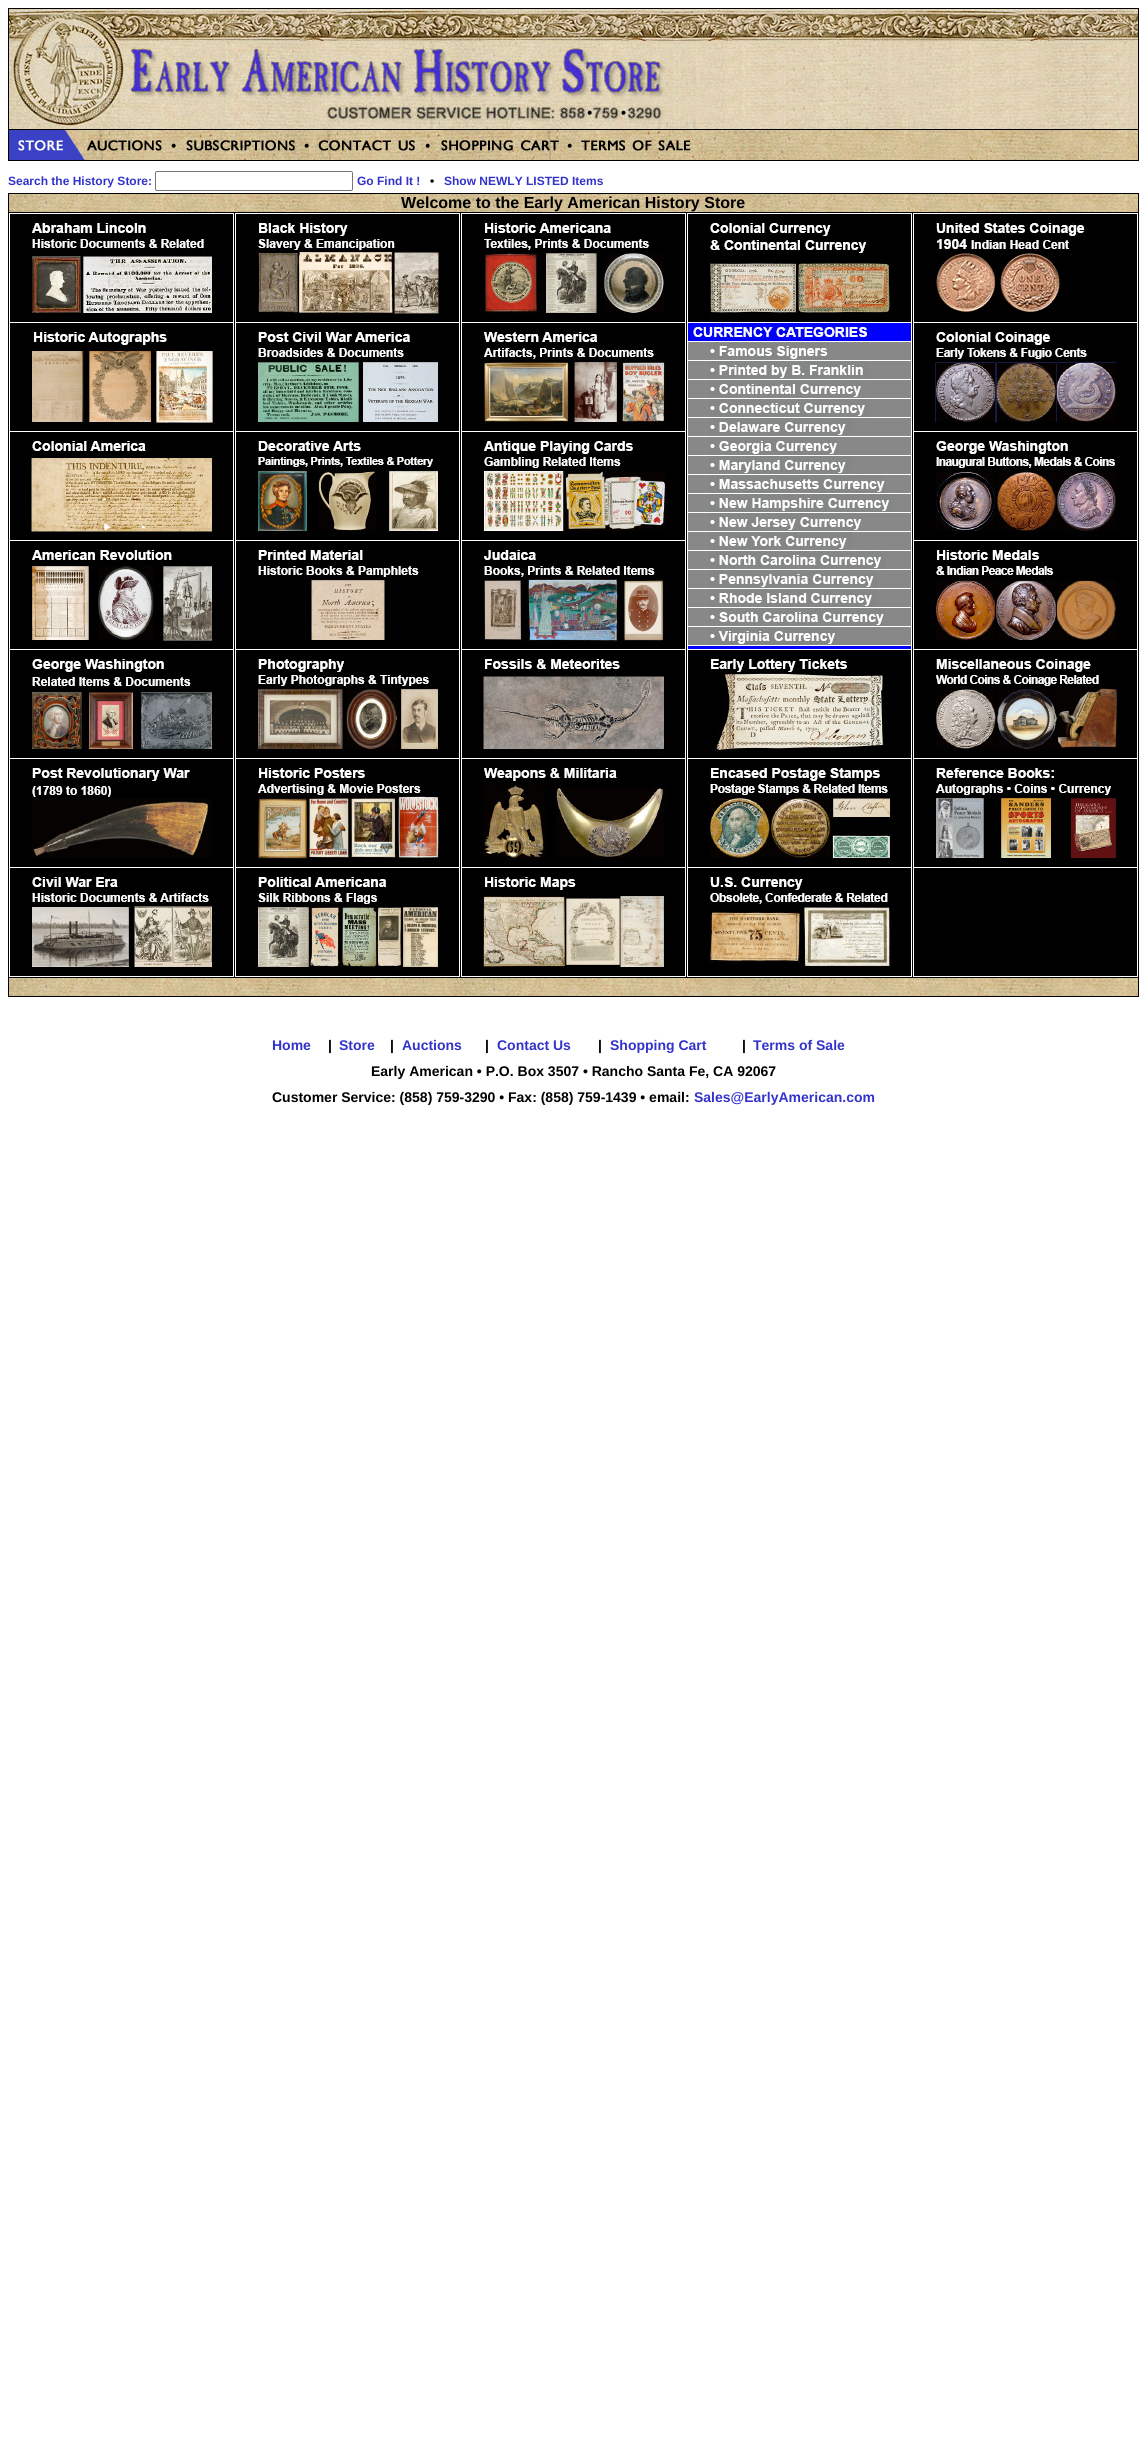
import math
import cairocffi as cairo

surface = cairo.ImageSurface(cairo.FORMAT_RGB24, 1147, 2451)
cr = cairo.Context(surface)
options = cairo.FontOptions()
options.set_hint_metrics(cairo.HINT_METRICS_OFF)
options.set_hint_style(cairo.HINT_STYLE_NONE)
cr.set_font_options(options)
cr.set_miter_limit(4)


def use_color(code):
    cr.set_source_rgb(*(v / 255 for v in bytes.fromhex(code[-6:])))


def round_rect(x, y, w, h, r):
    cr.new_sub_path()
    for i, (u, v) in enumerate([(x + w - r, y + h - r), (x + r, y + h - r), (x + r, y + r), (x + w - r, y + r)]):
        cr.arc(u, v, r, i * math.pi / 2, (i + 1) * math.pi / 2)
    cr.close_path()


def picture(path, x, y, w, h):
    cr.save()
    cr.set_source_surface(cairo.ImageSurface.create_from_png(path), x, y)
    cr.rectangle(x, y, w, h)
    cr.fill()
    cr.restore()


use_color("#ffffff")
cr.paint()
use_color("#000000")
cr.rectangle(8, 8, 1131, 153)
cr.fill()
picture("img1.png", 677, 9, 461, 120)
picture("img2.png", 9, 9, 668, 120)
picture("img3.png", 752, 130, 386, 30)
picture("img4.png", 9, 130, 743, 30)
cr.select_font_face("Liberation Sans", cairo.FONT_SLANT_NORMAL, cairo.FONT_WEIGHT_BOLD)
cr.set_font_size(12)
use_color("#3333cc")
cr.move_to(8, 185)
cr.show_text("Search the History Store:")
round_rect(155.5, 171.5, 197, 19, 1.5)
use_color("#767676")
cr.set_line_width(1)
cr.stroke()
use_color("#3333cc")
cr.move_to(357, 185)
cr.show_text("Go Find It !")
use_color("#000000")
cr.move_to(430, 185)
cr.show_text("•")
use_color("#3333cc")
cr.move_to(444, 185)
cr.show_text("Show NEWLY LISTED Items")
use_color("#000000")
cr.rectangle(8, 193, 1131, 804)
cr.fill()
picture("img5.png", 9, 194, 1129, 18)
cr.set_font_size(16)
cr.move_to(401, 208)
cr.show_text("Welcome to the Early American History Store")
use_color("#ffffff")
cr.rectangle(9, 213, 225, 764)
cr.fill()
use_color("#000000")
cr.rectangle(10, 214, 223, 108)
cr.fill()
picture("img6.png", 31, 222, 184, 96)
cr.rectangle(10, 323, 223, 108)
cr.fill()
picture("img7.png", 31, 331, 184, 96)
cr.rectangle(10, 432, 223, 108)
cr.fill()
picture("img8.png", 31, 440, 184, 96)
cr.rectangle(10, 541, 223, 108)
cr.fill()
picture("img9.png", 31, 550, 183, 95)
cr.rectangle(10, 650, 223, 108)
cr.fill()
picture("img10.png", 31, 658, 184, 96)
cr.rectangle(10, 759, 223, 108)
cr.fill()
picture("img11.png", 31, 768, 183, 90)
cr.rectangle(10, 868, 223, 108)
cr.fill()
picture("img12.png", 31, 876, 184, 96)
use_color("#ffffff")
cr.rectangle(235, 213, 225, 764)
cr.fill()
use_color("#000000")
cr.rectangle(236, 214, 223, 108)
cr.fill()
picture("img13.png", 257, 222, 184, 96)
cr.rectangle(236, 323, 223, 108)
cr.fill()
picture("img14.png", 257, 331, 182, 96)
cr.rectangle(236, 432, 223, 108)
cr.fill()
picture("img15.png", 257, 441, 184, 95)
cr.rectangle(236, 541, 223, 108)
cr.fill()
picture("img16.png", 257, 549, 166, 96)
cr.rectangle(236, 650, 223, 108)
cr.fill()
picture("img17.png", 257, 659, 184, 95)
cr.rectangle(236, 759, 223, 108)
cr.fill()
picture("img18.png", 257, 767, 184, 96)
cr.rectangle(236, 868, 223, 108)
cr.fill()
picture("img19.png", 257, 876, 184, 96)
use_color("#ffffff")
cr.rectangle(461, 213, 225, 764)
cr.fill()
use_color("#000000")
cr.rectangle(462, 214, 223, 108)
cr.fill()
picture("img20.png", 483, 222, 181, 96)
cr.rectangle(462, 323, 223, 108)
cr.fill()
picture("img21.png", 483, 331, 184, 96)
cr.rectangle(462, 432, 223, 108)
cr.fill()
picture("img22.png", 483, 440, 184, 96)
cr.rectangle(462, 541, 223, 108)
cr.fill()
picture("img23.png", 483, 549, 184, 96)
cr.rectangle(462, 650, 223, 108)
cr.fill()
picture("img24.png", 483, 658, 184, 95)
cr.rectangle(462, 759, 223, 108)
cr.fill()
picture("img25.png", 483, 768, 184, 95)
cr.rectangle(462, 868, 223, 108)
cr.fill()
picture("img26.png", 483, 876, 184, 96)
use_color("#ffffff")
cr.rectangle(687, 213, 225, 764)
cr.fill()
use_color("#000000")
cr.rectangle(688, 214, 223, 108)
cr.fill()
picture("img27.png", 709, 222, 184, 96)
use_color("#0000ff")
cr.rectangle(688, 323, 223, 18)
cr.fill()
picture("img28.png", 688, 323, 184, 16)
use_color("#888888")
cr.rectangle(688, 342, 223, 18)
cr.fill()
picture("img29.png", 709, 342, 120, 17)
cr.rectangle(688, 361, 223, 18)
cr.fill()
picture("img30.png", 709, 361, 160, 18)
cr.rectangle(688, 380, 223, 18)
cr.fill()
picture("img31.png", 709, 380, 152, 17)
cr.rectangle(688, 399, 223, 18)
cr.fill()
picture("img32.png", 709, 399, 160, 18)
cr.rectangle(688, 418, 223, 18)
cr.fill()
picture("img33.png", 709, 418, 144, 17)
cr.rectangle(688, 437, 223, 18)
cr.fill()
picture("img34.png", 709, 437, 128, 18)
cr.rectangle(688, 456, 223, 18)
cr.fill()
picture("img35.png", 709, 456, 144, 18)
cr.rectangle(688, 475, 223, 18)
cr.fill()
picture("img36.png", 709, 475, 176, 17)
cr.rectangle(688, 494, 223, 18)
cr.fill()
picture("img37.png", 709, 494, 184, 18)
cr.rectangle(688, 513, 223, 18)
cr.fill()
picture("img38.png", 709, 513, 152, 18)
cr.rectangle(688, 532, 223, 18)
cr.fill()
picture("img39.png", 709, 532, 144, 17)
cr.rectangle(688, 551, 223, 18)
cr.fill()
picture("img40.png", 709, 551, 176, 18)
cr.rectangle(688, 570, 223, 18)
cr.fill()
picture("img41.png", 709, 570, 168, 18)
cr.rectangle(688, 589, 223, 18)
cr.fill()
picture("img42.png", 709, 589, 168, 18)
cr.rectangle(688, 608, 223, 18)
cr.fill()
picture("img43.png", 709, 608, 176, 17)
cr.rectangle(688, 627, 223, 18)
cr.fill()
picture("img44.png", 709, 627, 128, 18)
use_color("#0000ff")
cr.rectangle(688, 646, 223, 3)
cr.fill()
use_color("#000000")
cr.rectangle(688, 650, 223, 108)
cr.fill()
picture("img45.png", 711, 658, 174, 96)
cr.rectangle(688, 759, 223, 108)
cr.fill()
picture("img46.png", 709, 767, 184, 96)
cr.rectangle(688, 868, 223, 108)
cr.fill()
picture("img47.png", 709, 876, 184, 94)
use_color("#ffffff")
cr.rectangle(913, 213, 225, 764)
cr.fill()
use_color("#000000")
cr.rectangle(914, 214, 223, 108)
cr.fill()
picture("img48.png", 935, 222, 152, 94)
cr.rectangle(914, 323, 223, 108)
cr.fill()
picture("img49.png", 935, 331, 184, 96)
cr.rectangle(914, 432, 223, 108)
cr.fill()
picture("img50.png", 935, 440, 184, 96)
cr.rectangle(914, 541, 223, 108)
cr.fill()
picture("img51.png", 935, 549, 184, 96)
cr.rectangle(914, 650, 223, 108)
cr.fill()
picture("img52.png", 935, 658, 184, 96)
cr.rectangle(914, 759, 223, 108)
cr.fill()
picture("img53.png", 935, 768, 184, 95)
cr.rectangle(914, 868, 223, 108)
cr.fill()
picture("img5.png", 9, 978, 1129, 18)
cr.set_font_size(14)
use_color("#3333cc")
cr.move_to(272, 1050)
cr.show_text("Home")
use_color("#000000")
cr.move_to(328, 1050)
cr.show_text("|")
use_color("#3333cc")
cr.move_to(339, 1050)
cr.show_text("Store")
use_color("#000000")
cr.move_to(390, 1050)
cr.show_text("|")
use_color("#3333cc")
cr.move_to(402, 1050)
cr.show_text("Auctions")
use_color("#000000")
cr.move_to(485, 1050)
cr.show_text("|")
use_color("#3333cc")
cr.move_to(497, 1050)
cr.show_text("Contact Us")
use_color("#000000")
cr.move_to(598, 1050)
cr.show_text("|")
use_color("#3333cc")
cr.move_to(610, 1050)
cr.show_text("Shopping Cart")
use_color("#000000")
cr.move_to(742, 1050)
cr.show_text("|")
use_color("#3333cc")
cr.move_to(753, 1050)
cr.show_text("Terms of Sale")
use_color("#000000")
cr.move_to(371, 1076)
cr.show_text("Early American • P.O. Box 3507 • Rancho Santa Fe, CA 92067")
cr.move_to(272, 1102)
cr.show_text("Customer Service: (858) 759-3290 • Fax: (858) 759-1439 • email:")
use_color("#3333cc")
cr.move_to(694, 1102)
cr.show_text("Sales@EarlyAmerican.com")
surface.write_to_png("result.png")
